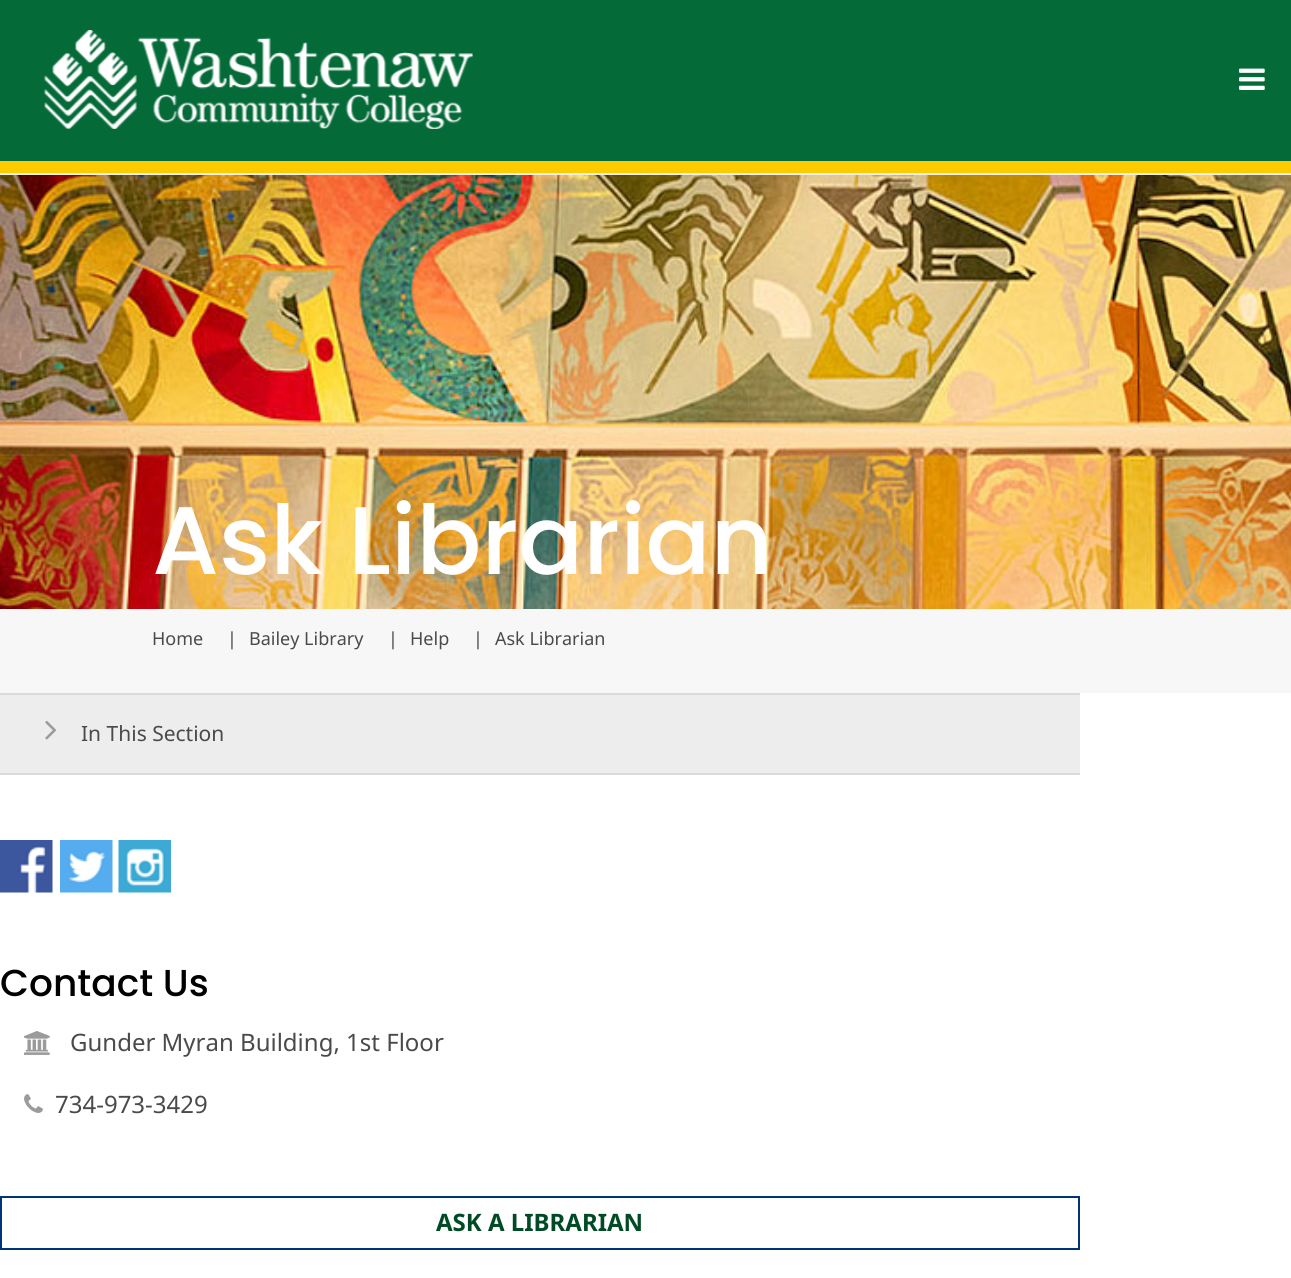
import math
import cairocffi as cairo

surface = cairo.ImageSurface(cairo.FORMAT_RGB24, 1291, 1278)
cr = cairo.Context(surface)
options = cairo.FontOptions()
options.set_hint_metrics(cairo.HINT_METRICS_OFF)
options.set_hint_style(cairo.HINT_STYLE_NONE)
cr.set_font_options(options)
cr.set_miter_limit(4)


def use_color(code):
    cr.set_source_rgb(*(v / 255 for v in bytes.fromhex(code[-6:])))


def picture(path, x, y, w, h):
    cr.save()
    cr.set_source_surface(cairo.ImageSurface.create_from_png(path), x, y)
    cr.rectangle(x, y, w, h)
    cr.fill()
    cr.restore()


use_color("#ffffff")
cr.paint()
use_color("#046a38")
cr.rectangle(0, 0, 1291, 161)
cr.fill()
picture("img1.png", 44, 30, 429, 99)
picture("img2.png", 1239, 68, 26, 22)
use_color("#fecb00")
cr.rectangle(0, 161, 1291, 12)
cr.fill()
use_color("#eeeeee")
cr.rectangle(0, 173, 1291, 2)
cr.fill()
picture("img3.png", 0, 175, 1291, 434)
cr.select_font_face("Poppins Medium")
cr.set_font_size(96)
use_color("#ffffff")
cr.move_to(152, 574)
cr.show_text("Ask Librarian")
use_color("#f7f7f7")
cr.rectangle(0, 609, 1291, 84)
cr.fill()
cr.select_font_face("Noto Sans")
cr.set_font_size(18)
use_color("#4a4a4a")
cr.move_to(152, 645)
cr.show_text("Home")
cr.move_to(227, 645)
cr.show_text("|")
cr.move_to(249, 645)
cr.show_text("Bailey Library")
cr.move_to(388, 645)
cr.show_text("|")
cr.move_to(410, 645)
cr.show_text("Help")
cr.move_to(473, 645)
cr.show_text("|")
cr.move_to(495, 645)
cr.show_text("Ask Librarian")
use_color("#ededed")
cr.rectangle(0, 695, 1080, 78)
cr.fill()
use_color("#dadada")
cr.rectangle(0, 693, 1080, 2)
cr.fill()
cr.rectangle(0, 773, 1080, 2)
cr.fill()
picture("img4.png", 45, 720, 12, 20)
cr.set_font_size(21)
use_color("#4a4a4a")
cr.move_to(81, 741)
cr.show_text("In This Section")
picture("img5.png", 0, 840, 53, 53)
picture("img6.png", 60, 840, 53, 53)
picture("img7.png", 118, 840, 53, 53)
cr.select_font_face("Poppins Medium")
cr.set_font_size(37.5)
use_color("#000000")
cr.move_to(0, 996)
cr.show_text("Contact Us")
picture("img8.png", 24, 1031, 26, 24)
cr.select_font_face("Noto Sans")
cr.set_font_size(24)
use_color("#4a4a4a")
cr.move_to(70, 1051)
cr.show_text("Gunder Myran Building, 1st Floor")
picture("img9.png", 24, 1094, 19, 19)
cr.move_to(55, 1113)
cr.show_text("734-973-3429")
cr.rectangle(1, 1197, 1078, 52)
use_color("#003478")
cr.stroke()
cr.select_font_face("Noto Sans", cairo.FONT_SLANT_NORMAL, cairo.FONT_WEIGHT_BOLD)
use_color("#004b25")
cr.move_to(436, 1231)
cr.show_text("ASK A LIBRARIAN")
surface.write_to_png("result.png")
